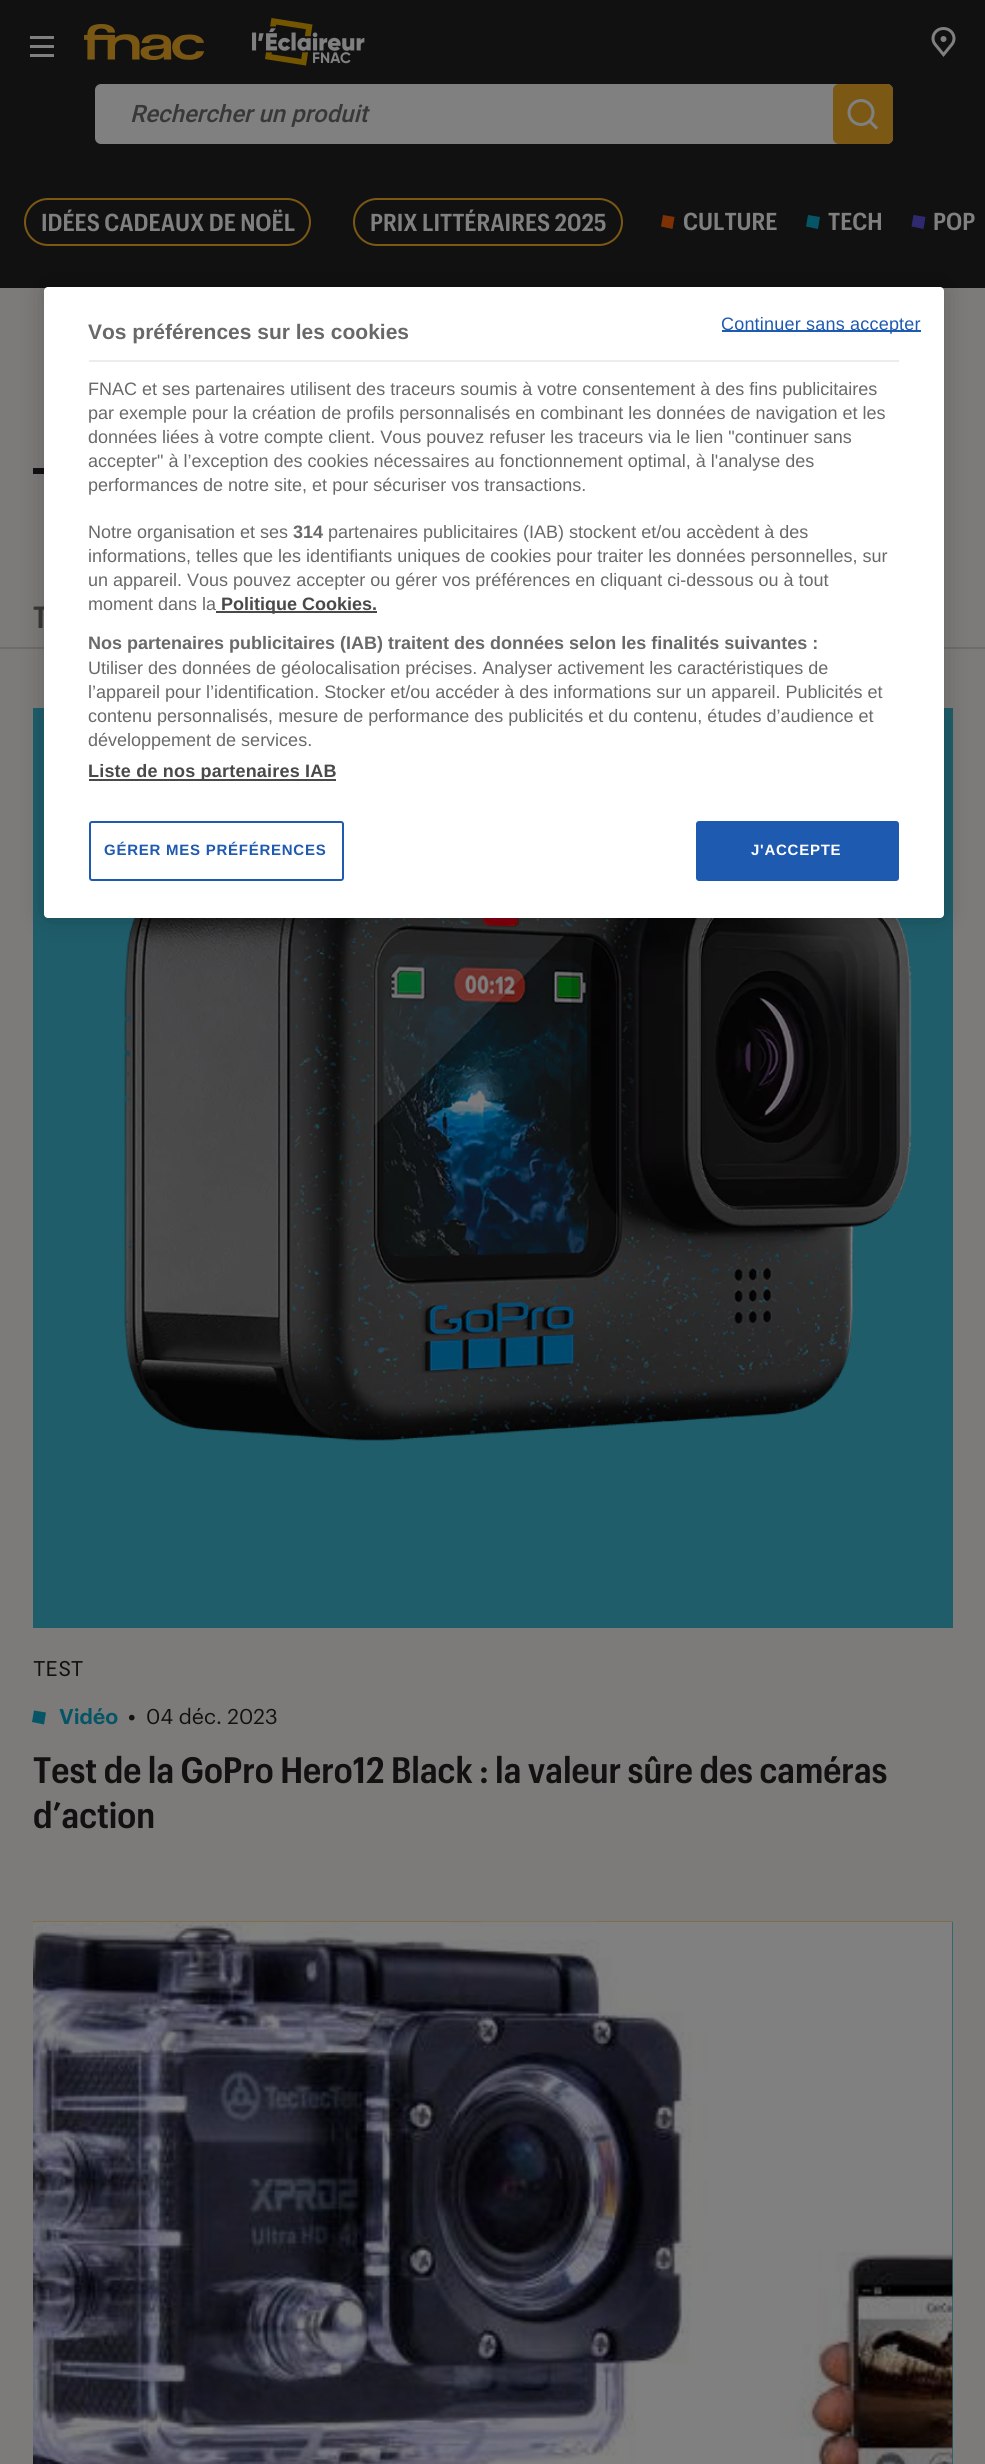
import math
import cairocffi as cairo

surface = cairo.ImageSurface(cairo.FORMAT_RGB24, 985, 2464)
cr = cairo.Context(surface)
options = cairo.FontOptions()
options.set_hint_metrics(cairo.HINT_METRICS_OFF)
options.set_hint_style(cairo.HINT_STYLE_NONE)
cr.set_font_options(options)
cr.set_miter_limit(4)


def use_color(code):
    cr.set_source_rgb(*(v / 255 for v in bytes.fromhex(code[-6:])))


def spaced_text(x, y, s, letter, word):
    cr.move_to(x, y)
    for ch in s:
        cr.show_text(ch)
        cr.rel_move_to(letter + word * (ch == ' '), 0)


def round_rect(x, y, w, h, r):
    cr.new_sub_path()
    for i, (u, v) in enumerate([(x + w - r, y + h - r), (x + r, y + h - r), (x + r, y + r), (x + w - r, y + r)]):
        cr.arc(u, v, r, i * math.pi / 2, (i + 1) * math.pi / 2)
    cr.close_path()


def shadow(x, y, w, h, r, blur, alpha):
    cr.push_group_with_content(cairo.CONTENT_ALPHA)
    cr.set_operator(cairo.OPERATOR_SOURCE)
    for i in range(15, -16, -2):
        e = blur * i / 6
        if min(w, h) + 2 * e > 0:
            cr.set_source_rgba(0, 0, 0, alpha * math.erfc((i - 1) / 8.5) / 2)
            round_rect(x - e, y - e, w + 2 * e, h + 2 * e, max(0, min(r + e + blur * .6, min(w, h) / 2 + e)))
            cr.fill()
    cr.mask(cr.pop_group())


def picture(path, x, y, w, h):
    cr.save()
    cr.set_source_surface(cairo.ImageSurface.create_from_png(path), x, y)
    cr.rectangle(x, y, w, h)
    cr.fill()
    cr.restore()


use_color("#7c7b79")
cr.paint()
use_color("#111111")
cr.rectangle(0, 0, 985, 288)
cr.fill()
use_color("#808080")
cr.rectangle(30, 36, 24, 3)
cr.fill()
cr.rectangle(30, 45, 24, 3)
cr.fill()
cr.rectangle(30, 54, 24, 3)
cr.fill()
picture("img1.png", 84, 24, 120, 36)
picture("img2.png", 252, 18, 113, 48)
picture("img3.png", 931, 27, 25, 30)
round_rect(95, 84, 798, 60, 6)
cr.fill()
cr.select_font_face("Roboto Medium", cairo.FONT_SLANT_ITALIC)
cr.set_font_size(24)
use_color("#383836")
cr.move_to(130, 122)
cr.show_text("Rechercher un produit")
use_color("#7b5814")
round_rect(833, 84, 60, 60, 6)
cr.fill()
picture("img4.png", 847, 99, 31, 31)
round_rect(25, 199, 285, 46, 23)
cr.stroke()
cr.select_font_face("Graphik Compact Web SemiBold")
use_color("#808080")
cr.move_to(41, 231)
cr.show_text("IDÉES CADEAUX DE NOËL")
round_rect(354, 199, 268, 46, 23)
use_color("#7b5814")
cr.stroke()
use_color("#808080")
cr.move_to(370, 231)
cr.show_text("PRIX LITTÉRAIRES 2025")
use_color("#7d3105")
cr.new_path()
cr.move_to(663, 215)
cr.line_to(674.5, 217)
cr.line_to(672.5, 229)
cr.line_to(661, 226.5)
cr.close_path()
cr.fill()
use_color("#808080")
cr.move_to(683, 230)
cr.show_text("CULTURE")
use_color("#065566")
cr.new_path()
cr.move_to(808, 215)
cr.line_to(820, 217)
cr.line_to(818, 229)
cr.line_to(806, 226.5)
cr.close_path()
cr.fill()
use_color("#808080")
cr.move_to(828, 230)
cr.show_text("TECH")
use_color("#2f2a6f")
cr.new_path()
cr.move_to(913.5, 215)
cr.line_to(925.5, 217)
cr.line_to(923.5, 229)
cr.line_to(911.5, 226.5)
cr.close_path()
cr.fill()
use_color("#808080")
cr.move_to(933, 230)
cr.show_text("POP")
use_color("#111111")
cr.rectangle(33, 468, 11, 6)
cr.fill()
use_color("#6d6c69")
cr.rectangle(0, 647, 985, 2)
cr.fill()
cr.set_font_size(30)
use_color("#383836")
cr.move_to(33, 628)
cr.show_text("T")
use_color("#1f5d6b")
cr.rectangle(33, 708, 920, 920)
cr.fill()
picture("img5.png", 124, 918, 788, 523)
cr.select_font_face("Roboto Mono")
cr.set_font_size(21)
use_color("#111111")
cr.move_to(33, 1676)
cr.show_text("TEST")
use_color("#065566")
cr.new_path()
cr.move_to(34, 1710.5)
cr.line_to(46, 1712.5)
cr.line_to(44, 1724.5)
cr.line_to(32, 1722)
cr.close_path()
cr.fill()
cr.select_font_face("Graphik SemiBold")
cr.move_to(59, 1724)
cr.show_text("Vidéo")
use_color("#111111")
cr.move_to(128, 1724)
cr.show_text("•")
cr.select_font_face("Graphik")
cr.move_to(146, 1724)
cr.show_text("04 déc. 2023")
cr.select_font_face("Graphik Compact Web SemiBold")
cr.set_font_size(36)
cr.move_to(33, 1783)
cr.show_text("Test de la GoPro Hero12 Black : la valeur sûre des caméras")
cr.move_to(33, 1828)
cr.show_text("d’action")
picture("img6.png", 33, 1921, 920, 1)
use_color("#1f5d6b")
cr.rectangle(952, 1922, 1, 542)
cr.fill()
picture("img7.png", 33, 1921, 920, 543)
use_color("#000000")
shadow(44, 287, 900, 631, 4, 13.5, 0.2)
use_color("#ffffff")
round_rect(44, 287, 900, 631, 4)
cr.fill()
use_color("#1f5ab1")
cr.rectangle(722, 330, 199, 2)
cr.fill()
cr.select_font_face("Liberation Sans")
cr.set_font_size(18)
spaced_text(721, 330, "Continuer sans accepter", 0.2, 0)
cr.select_font_face("Liberation Sans", cairo.FONT_SLANT_NORMAL, cairo.FONT_WEIGHT_BOLD)
cr.set_font_size(21)
use_color("#696969")
cr.move_to(88, 339)
cr.show_text("Vos préférences sur les cookies")
use_color("#ececec")
cr.rectangle(89, 360, 810, 2)
cr.fill()
cr.select_font_face("Liberation Sans")
cr.set_font_size(18)
use_color("#696969")
cr.move_to(88, 395)
cr.show_text("FNAC et ses partenaires utilisent des traceurs soumis à votre consentement à des fins publicitaires")
cr.move_to(88, 419)
cr.show_text("par exemple pour la création de profils personnalisés en combinant les données de navigation et les")
cr.move_to(88, 443)
cr.show_text("données liées à votre compte client. Vous pouvez refuser les traceurs via le lien \"continuer sans")
cr.move_to(88, 467)
cr.show_text("accepter\" à l’exception des cookies nécessaires au fonctionnement optimal, à l'analyse des")
cr.move_to(88, 491)
cr.show_text("performances de notre site, et pour sécuriser vos transactions.")
cr.move_to(88, 538)
cr.show_text("Notre organisation et ses")
cr.select_font_face("Liberation Sans", cairo.FONT_SLANT_NORMAL, cairo.FONT_WEIGHT_BOLD)
cr.move_to(293, 538)
cr.show_text("314")
cr.select_font_face("Liberation Sans")
cr.move_to(328, 538)
cr.show_text("partenaires publicitaires (IAB) stockent et/ou accèdent à des")
cr.move_to(88, 562)
cr.show_text("informations, telles que les identifiants uniques de cookies pour traiter les données personnelles, sur")
cr.move_to(88, 586)
cr.show_text("un appareil. Vous pouvez accepter ou gérer vos préférences en cliquant ci-dessous ou à tout")
cr.move_to(88, 610)
cr.show_text("moment dans la")
use_color("#494949")
cr.rectangle(216, 611, 161, 2)
cr.fill()
cr.select_font_face("Liberation Sans", cairo.FONT_SLANT_NORMAL, cairo.FONT_WEIGHT_BOLD)
cr.move_to(221, 610)
cr.show_text("Politique Cookies.")
use_color("#696969")
cr.move_to(88, 649)
cr.show_text("Nos partenaires publicitaires (IAB) traitent des données selon les finalités suivantes :")
cr.select_font_face("Liberation Sans")
cr.move_to(88, 674)
cr.show_text("Utiliser des données de géolocalisation précises. Analyser activement les caractéristiques de")
cr.move_to(88, 698)
cr.show_text("l’appareil pour l’identification. Stocker et/ou accéder à des informations sur un appareil. Publicités et")
cr.move_to(88, 722)
cr.show_text("contenu personnalisés, mesure de performance des publicités et du contenu, études d’audience et")
cr.move_to(88, 746)
cr.show_text("développement de services.")
use_color("#494949")
cr.rectangle(89, 779, 247, 2)
cr.fill()
cr.select_font_face("Liberation Sans", cairo.FONT_SLANT_NORMAL, cairo.FONT_WEIGHT_BOLD)
spaced_text(88, 777, "Liste de nos partenaires IAB", 0.2, 0)
round_rect(90, 822, 253, 58, 2)
use_color("#1f5ab1")
cr.stroke()
cr.set_font_size(15)
spaced_text(104, 855, "GÉRER MES PRÉFÉRENCES", 0.75, 0)
round_rect(697, 822, 201, 58, 2)
cr.fill_preserve()
cr.stroke()
use_color("#ffffff")
spaced_text(751, 855, "J'ACCEPTE", 0.75, 0)
surface.write_to_png("result.png")
